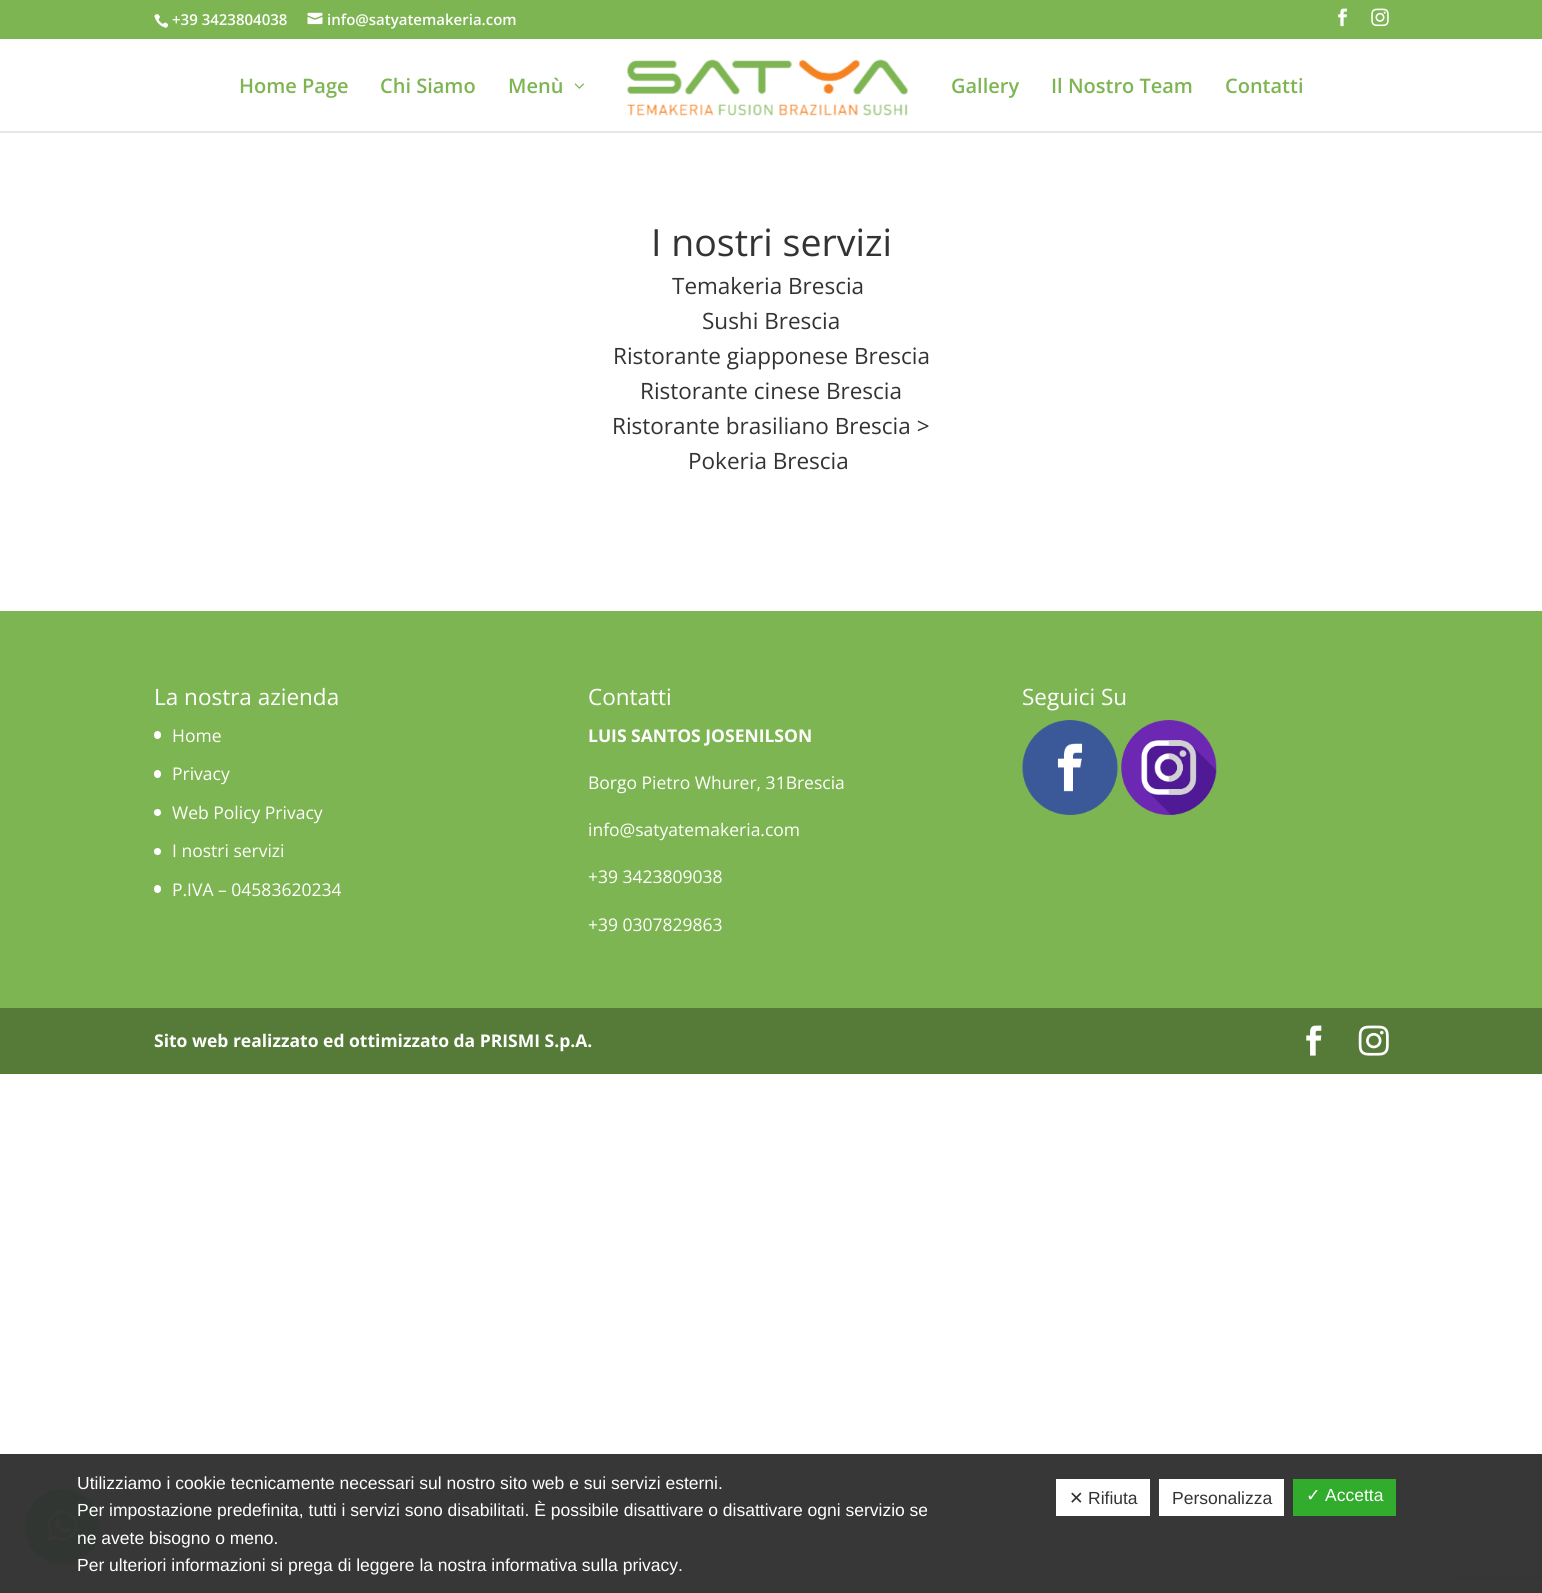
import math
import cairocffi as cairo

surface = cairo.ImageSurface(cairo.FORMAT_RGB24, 1542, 1593)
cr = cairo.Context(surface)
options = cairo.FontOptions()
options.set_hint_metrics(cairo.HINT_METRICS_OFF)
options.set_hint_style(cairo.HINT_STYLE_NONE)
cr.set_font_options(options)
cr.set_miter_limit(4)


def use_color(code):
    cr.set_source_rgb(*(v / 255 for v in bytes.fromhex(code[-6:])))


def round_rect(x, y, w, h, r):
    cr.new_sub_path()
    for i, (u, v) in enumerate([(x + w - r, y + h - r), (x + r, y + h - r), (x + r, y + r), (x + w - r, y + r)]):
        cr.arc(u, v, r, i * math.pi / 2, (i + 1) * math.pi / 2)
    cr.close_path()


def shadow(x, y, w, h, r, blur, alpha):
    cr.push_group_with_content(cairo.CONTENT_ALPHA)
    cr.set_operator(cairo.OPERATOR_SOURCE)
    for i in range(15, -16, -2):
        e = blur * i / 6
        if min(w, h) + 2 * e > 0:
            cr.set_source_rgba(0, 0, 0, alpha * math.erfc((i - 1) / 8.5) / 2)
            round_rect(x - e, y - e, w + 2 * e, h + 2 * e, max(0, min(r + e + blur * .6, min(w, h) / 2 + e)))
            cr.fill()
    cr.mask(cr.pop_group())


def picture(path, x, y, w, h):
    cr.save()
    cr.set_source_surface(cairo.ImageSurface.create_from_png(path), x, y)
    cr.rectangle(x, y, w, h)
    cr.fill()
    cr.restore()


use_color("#ffffff")
cr.paint()
use_color("#7eb553")
cr.rectangle(0, 0, 1542, 39)
cr.fill()
picture("img1.png", 154, 14, 15, 14)
cr.select_font_face("Open Sans SemiBold")
cr.set_font_size(15)
use_color("#ffffff")
cr.move_to(172, 25)
cr.show_text("+39 3423804038")
picture("img2.png", 307, 12, 16, 13)
cr.move_to(327, 25)
cr.show_text("info@satyatemakeria.com")
picture("img3.png", 1338, 8, 9, 19)
picture("img4.png", 1371, 8, 18, 19)
use_color("#e6e6e6")
cr.new_path()
cr.move_to(0, 131)
cr.line_to(0, 133)
cr.line_to(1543, 133)
cr.line_to(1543, 40)
cr.line_to(1542, 40)
cr.line_to(1542, 131)
cr.close_path()
cr.fill()
cr.set_font_size(20)
use_color("#7eb553")
cr.move_to(239, 93)
cr.show_text("Home Page")
cr.move_to(380, 93)
cr.show_text("Chi Siamo")
cr.move_to(508, 93)
cr.show_text("Menù")
picture("img5.png", 574, 83, 10, 6)
picture("img6.png", 627, 59, 281, 57)
cr.move_to(951, 93)
cr.show_text("Gallery")
cr.move_to(1051, 93)
cr.show_text("Il Nostro Team")
cr.move_to(1225, 93)
cr.show_text("Contatti")
cr.select_font_face("Open Sans")
cr.set_font_size(37.5)
use_color("#333333")
cr.move_to(651, 256)
cr.show_text("I nostri servizi")
cr.set_font_size(22.5)
cr.move_to(672, 294)
cr.show_text("Temakeria Brescia")
cr.move_to(702, 329)
cr.show_text("Sushi Brescia")
cr.move_to(613, 364)
cr.show_text("Ristorante giapponese Brescia")
cr.move_to(640, 399)
cr.show_text("Ristorante cinese Brescia")
cr.move_to(612, 434)
cr.show_text("Ristorante brasiliano Brescia >")
cr.move_to(688, 469)
cr.show_text("Pokeria Brescia")
use_color("#7eb553")
cr.rectangle(0, 611, 1542, 397)
cr.fill()
use_color("#ffffff")
cr.move_to(154, 705)
cr.show_text("La nostra azienda")
round_rect(154, 731, 7, 8, 3.5)
cr.fill()
cr.set_font_size(17.5)
cr.move_to(172, 742)
cr.show_text("Home")
round_rect(154, 770, 7, 8, 3.5)
cr.fill()
cr.move_to(172, 780)
cr.show_text("Privacy")
cr.new_path()
cr.arc(157.5, 812.5, 3.5, 0, 2 * math.pi)
cr.fill()
cr.move_to(172, 819)
cr.show_text("Web Policy Privacy")
cr.new_path()
cr.arc(157.5, 851.5, 3.5, 0, 2 * math.pi)
cr.fill()
cr.move_to(172, 857)
cr.show_text("I nostri servizi")
round_rect(154, 885, 7, 8, 3.5)
cr.fill()
cr.move_to(172, 896)
cr.show_text("P.IVA – 04583620234")
cr.set_font_size(22.5)
cr.move_to(588, 705)
cr.show_text("Contatti")
cr.select_font_face("Open Sans", cairo.FONT_SLANT_NORMAL, cairo.FONT_WEIGHT_BOLD)
cr.set_font_size(17.5)
cr.move_to(588, 742)
cr.show_text("LUIS SANTOS JOSENILSON")
cr.select_font_face("Open Sans")
cr.move_to(588, 789)
cr.show_text("Borgo Pietro Whurer, 31Brescia")
cr.move_to(588, 836)
cr.show_text("info@satyatemakeria.com")
cr.move_to(588, 883)
cr.show_text("+39 3423809038")
cr.move_to(588, 931)
cr.show_text("+39 0307829863")
cr.set_font_size(22.5)
cr.move_to(1022, 705)
cr.show_text("Seguici Su")
picture("img7.png", 1022, 720, 96, 95)
picture("img8.png", 1121, 720, 96, 95)
use_color("#567b38")
cr.rectangle(0, 1008, 1542, 66)
cr.fill()
cr.select_font_face("Open Sans", cairo.FONT_SLANT_NORMAL, cairo.FONT_WEIGHT_BOLD)
cr.set_font_size(17.5)
use_color("#ffffff")
cr.move_to(154, 1047)
cr.show_text("Sito web realizzato ed ottimizzato da PRISMI S.p.A.")
picture("img9.png", 1306, 1025, 16, 31)
picture("img10.png", 1358, 1025, 31, 31)
use_color("#000000")
shadow(25, 1491, 75, 75, 37.5, 20, 0.16)
shadow(25, 1490, 75, 75, 37.5, 4, 0.06)
use_color("#12b71a")
cr.arc(62.5, 1526.5, 37.5, 0, 2 * math.pi)
cr.fill()
picture("img11.png", 47, 1510, 31, 31)
cr.save()
cr.set_fill_rule(cairo.FILL_RULE_EVEN_ODD)
cr.new_path()
cr.move_to(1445, 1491)
cr.line_to(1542, 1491)
cr.line_to(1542, 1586)
cr.line_to(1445, 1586)
cr.close_path()
cr.move_to(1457.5, 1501)
cr.line_to(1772.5, 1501)
cr.curve_to(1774, 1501, 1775, 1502, 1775, 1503.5)
cr.line_to(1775, 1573.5)
cr.curve_to(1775, 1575, 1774, 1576, 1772.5, 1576)
cr.line_to(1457.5, 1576)
cr.curve_to(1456, 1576, 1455, 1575, 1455, 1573.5)
cr.line_to(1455, 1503.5)
cr.curve_to(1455, 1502, 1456, 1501, 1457.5, 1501)
cr.close_path()
cr.clip()
use_color("#808080")
shadow(1455, 1501, 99, 75, 2.5, 3, 1)
cr.restore()
cr.set_source_rgba(0.2, 0.2, 0.2, 0.98)
cr.rectangle(0, 1454, 1542, 139)
cr.fill()
cr.select_font_face("Liberation Sans")
use_color("#ffffff")
cr.move_to(77, 1489)
cr.show_text("Utilizziamo i cookie tecnicamente necessari sul nostro sito web e sui servizi esterni.")
cr.move_to(77, 1516)
cr.show_text("Per impostazione predefinita, tutti i servizi sono disabilitati. È possibile disattivare o disattivare ogni servizio se")
cr.move_to(77, 1544)
cr.show_text("ne avete bisogno o meno.")
cr.move_to(77, 1571)
cr.show_text("Per ulteriori informazioni si prega di leggere la nostra informativa sulla privacy.")
cr.rectangle(1056, 1479, 94, 37)
cr.fill()
cr.select_font_face("DejaVu Sans")
use_color("#333333")
cr.move_to(1069, 1504)
cr.show_text("✕")
cr.select_font_face("Liberation Sans")
cr.move_to(1088, 1504)
cr.show_text("Rifiuta")
use_color("#ffffff")
cr.rectangle(1159, 1479, 125, 37)
cr.fill()
use_color("#333333")
cr.move_to(1172, 1504)
cr.show_text("Personalizza")
use_color("#31ac2c")
cr.rectangle(1293, 1479, 103, 37)
cr.fill()
cr.select_font_face("DejaVu Sans")
use_color("#ffffff")
cr.move_to(1306, 1501)
cr.show_text("✓")
cr.select_font_face("Liberation Sans")
cr.move_to(1325, 1501)
cr.show_text("Accetta")
surface.write_to_png("result.png")
